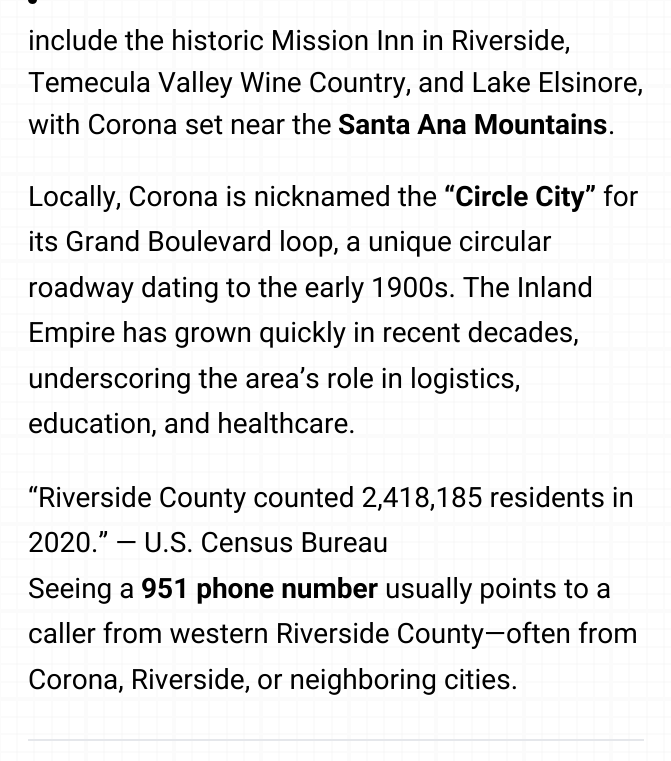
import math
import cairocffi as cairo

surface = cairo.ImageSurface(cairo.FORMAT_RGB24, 671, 761)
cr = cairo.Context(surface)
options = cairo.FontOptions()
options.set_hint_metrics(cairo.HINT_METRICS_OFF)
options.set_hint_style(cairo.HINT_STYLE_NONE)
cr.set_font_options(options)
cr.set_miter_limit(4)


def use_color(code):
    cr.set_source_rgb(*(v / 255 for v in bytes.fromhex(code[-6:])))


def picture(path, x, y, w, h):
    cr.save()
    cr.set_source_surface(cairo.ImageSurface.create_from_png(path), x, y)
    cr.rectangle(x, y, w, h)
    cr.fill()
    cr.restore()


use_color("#ffffff")
cr.paint()
picture("img1.png", 16, 1, 649, 760)
picture("img2.png", 1, 16, 670, 737)
use_color("#fbfbfb")
cr.rectangle(0, 0, 1, 761)
cr.fill()
cr.rectangle(84, 0, 4, 761)
cr.fill()
cr.rectangle(172, 0, 4, 761)
cr.fill()
cr.rectangle(259, 0, 4, 761)
cr.fill()
cr.rectangle(347, 0, 4, 761)
cr.fill()
cr.rectangle(434, 0, 4, 761)
cr.fill()
cr.rectangle(522, 0, 4, 761)
cr.fill()
cr.rectangle(609, 0, 4, 761)
cr.fill()
cr.rectangle(0, 0, 671, 1)
cr.fill()
cr.rectangle(0, 84, 671, 4)
cr.fill()
cr.rectangle(0, 172, 671, 4)
cr.fill()
cr.rectangle(0, 259, 671, 4)
cr.fill()
cr.rectangle(0, 347, 671, 4)
cr.fill()
cr.rectangle(0, 434, 671, 4)
cr.fill()
cr.rectangle(0, 522, 671, 4)
cr.fill()
cr.rectangle(0, 609, 671, 4)
cr.fill()
cr.rectangle(0, 697, 671, 4)
cr.fill()
use_color("#000000")
cr.arc(32.5, -0.5, 4.5, 0, 2 * math.pi)
cr.fill()
cr.select_font_face("Roboto")
cr.set_font_size(28)
cr.move_to(28, 50)
cr.show_text("include the historic Mission Inn in Riverside,")
cr.move_to(28, 92)
cr.show_text("Temecula Valley Wine Country, and Lake Elsinore,")
cr.move_to(28, 134)
cr.show_text("with Corona set near the")
cr.select_font_face("Roboto", cairo.FONT_SLANT_NORMAL, cairo.FONT_WEIGHT_BOLD)
cr.move_to(338, 134)
cr.show_text("Santa Ana Mountains")
cr.select_font_face("Roboto")
cr.move_to(608, 134)
cr.show_text(".")
cr.move_to(28, 206)
cr.show_text("Locally, Corona is nicknamed the")
cr.select_font_face("Roboto", cairo.FONT_SLANT_NORMAL, cairo.FONT_WEIGHT_BOLD)
cr.move_to(444, 206)
cr.show_text("“Circle City”")
cr.select_font_face("Roboto")
cr.move_to(603, 206)
cr.show_text("for")
cr.move_to(28, 251)
cr.show_text("its Grand Boulevard loop, a unique circular")
cr.move_to(28, 297)
cr.show_text("roadway dating to the early 1900s. The Inland")
cr.move_to(28, 342)
cr.show_text("Empire has grown quickly in recent decades,")
cr.move_to(28, 388)
cr.show_text("underscoring the area’s role in logistics,")
cr.move_to(28, 433)
cr.show_text("education, and healthcare.")
cr.move_to(28, 507)
cr.show_text("“Riverside County counted 2,418,185 residents in")
cr.move_to(28, 552)
cr.show_text("2020.” — U.S. Census Bureau")
cr.move_to(28, 598)
cr.show_text("Seeing a")
cr.select_font_face("Roboto", cairo.FONT_SLANT_NORMAL, cairo.FONT_WEIGHT_BOLD)
cr.move_to(141, 598)
cr.show_text("951 phone number")
cr.select_font_face("Roboto")
cr.move_to(385, 598)
cr.show_text("usually points to a")
cr.move_to(28, 643)
cr.show_text("caller from western Riverside County—often from")
cr.move_to(28, 689)
cr.show_text("Corona, Riverside, or neighboring cities.")
use_color("#e5e7eb")
cr.rectangle(28, 739, 616, 2)
cr.fill()
surface.write_to_png("result.png")
